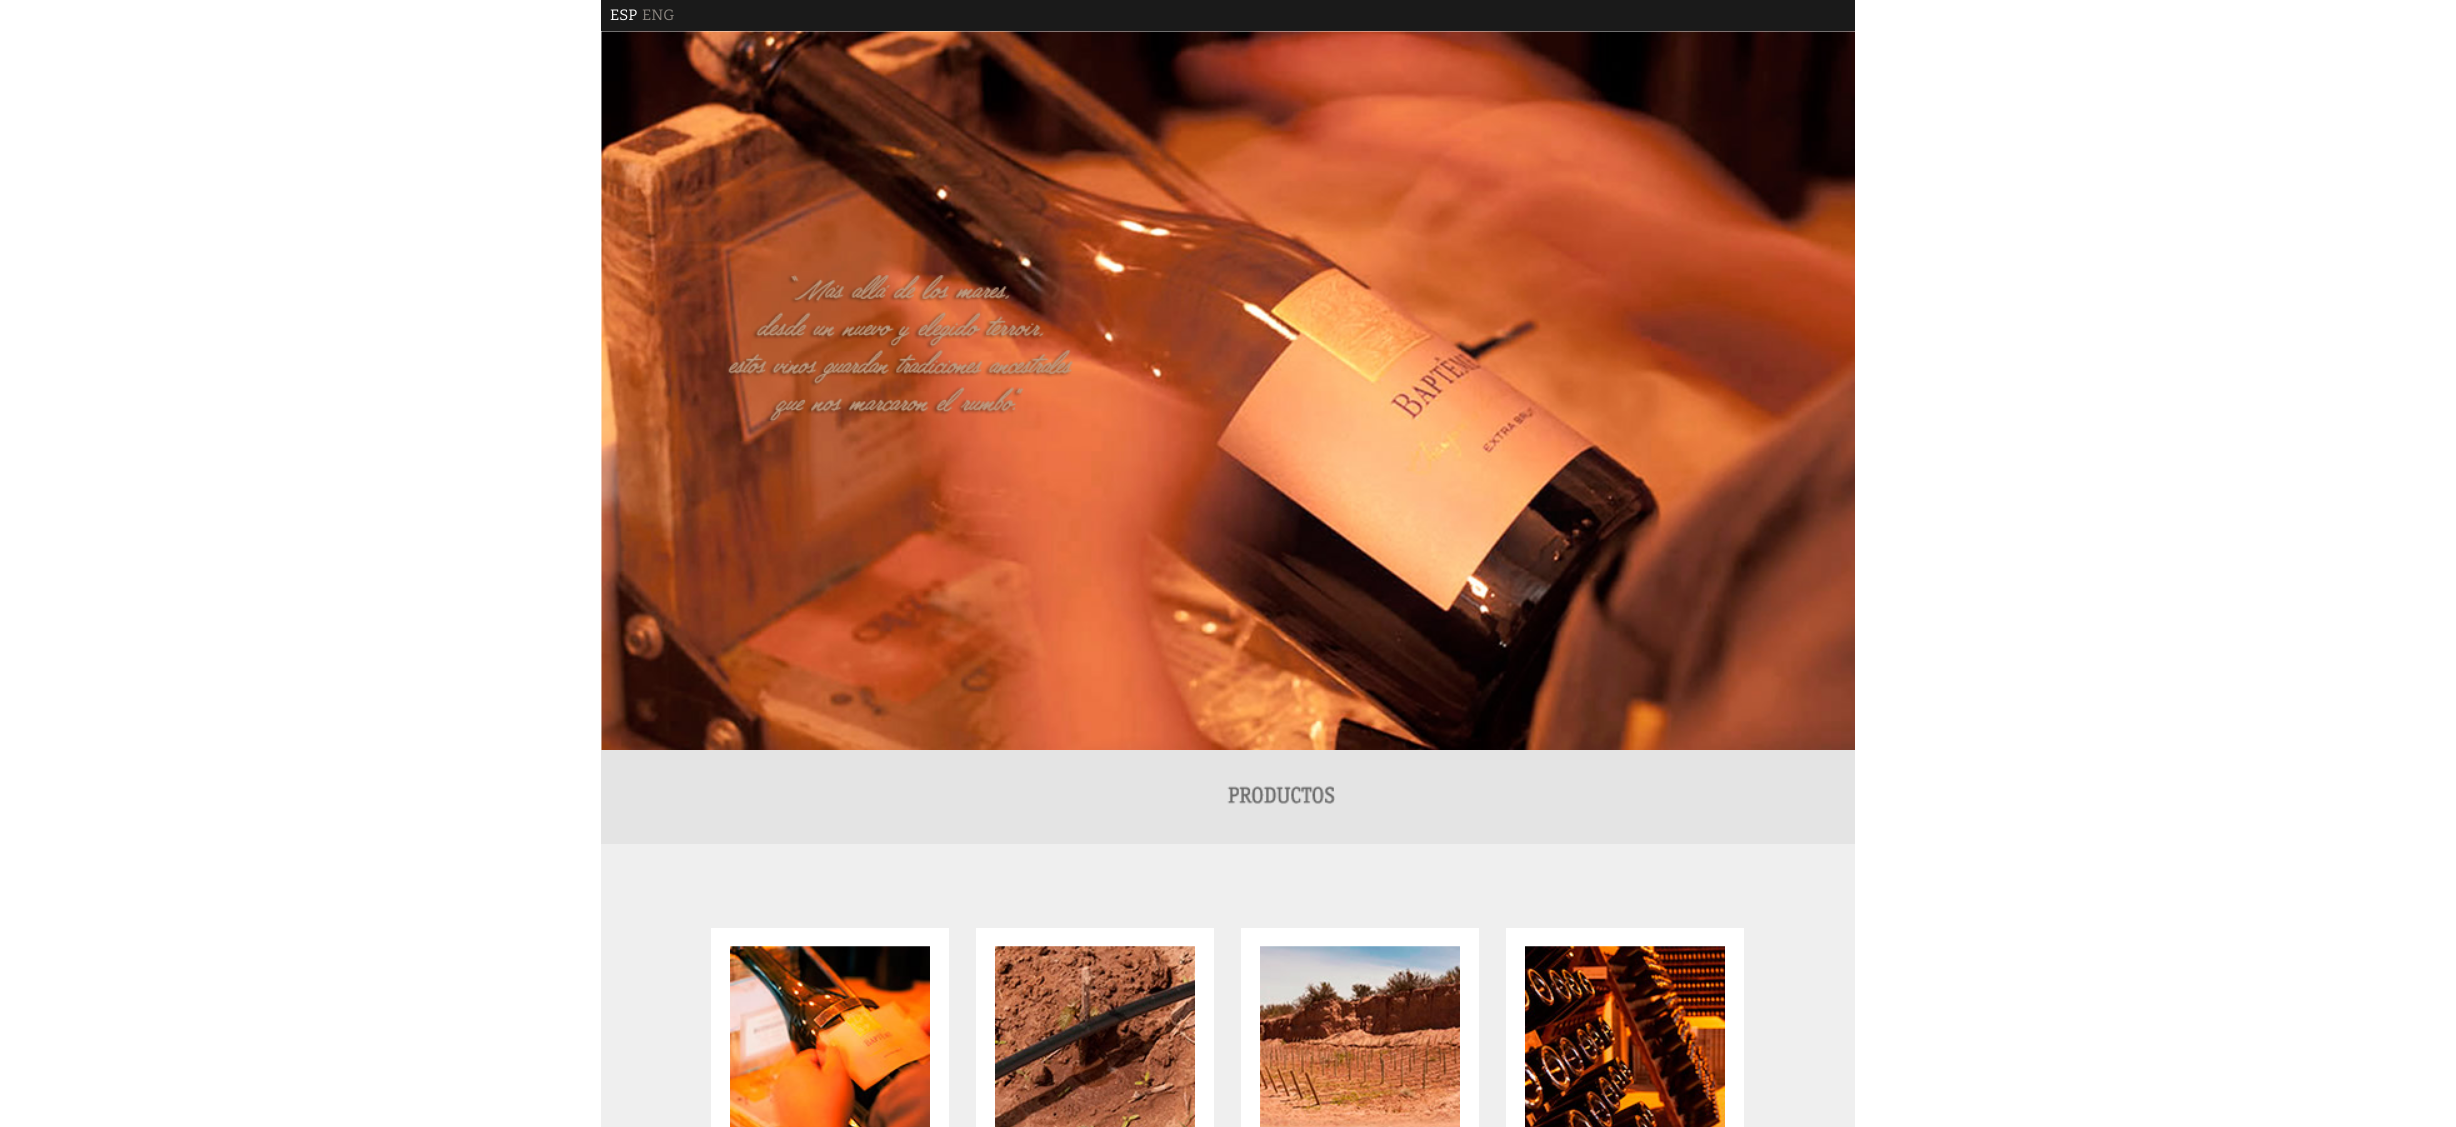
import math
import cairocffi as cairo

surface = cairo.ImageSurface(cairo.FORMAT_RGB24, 2456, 1127)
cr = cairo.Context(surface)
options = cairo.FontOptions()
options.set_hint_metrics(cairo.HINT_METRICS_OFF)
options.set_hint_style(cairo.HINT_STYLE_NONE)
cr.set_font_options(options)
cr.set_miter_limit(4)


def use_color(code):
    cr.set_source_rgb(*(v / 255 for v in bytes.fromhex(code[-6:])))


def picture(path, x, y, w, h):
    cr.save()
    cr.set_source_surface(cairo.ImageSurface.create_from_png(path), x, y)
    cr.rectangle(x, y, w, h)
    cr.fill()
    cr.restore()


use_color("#ffffff")
cr.paint()
use_color("#1a1a1a")
cr.rectangle(601, 0, 1254, 31)
cr.fill()
cr.select_font_face("Bitter Thin")
cr.set_font_size(15)
use_color("#ffffff")
cr.move_to(610, 20)
cr.show_text("ESP")
use_color("#8a857f")
cr.move_to(642, 20)
cr.show_text("ENG")
picture("img1.png", 601, 31, 1254, 719)
picture("img2.png", 728, 275, 345, 147)
use_color("#e4e4e4")
cr.rectangle(601, 750, 1254, 94)
cr.fill()
picture("img3.png", 1227, 786, 108, 18)
use_color("#efefef")
cr.rectangle(601, 844, 1254, 283)
cr.fill()
use_color("#ffffff")
cr.rectangle(711, 928, 238, 199)
cr.fill()
picture("img4.png", 730, 946, 200, 181)
cr.rectangle(976, 928, 238, 199)
cr.fill()
picture("img5.png", 995, 946, 200, 181)
cr.rectangle(1241, 928, 238, 199)
cr.fill()
picture("img6.png", 1260, 946, 200, 181)
cr.rectangle(1506, 928, 238, 199)
cr.fill()
picture("img7.png", 1525, 946, 200, 181)
surface.write_to_png("result.png")
